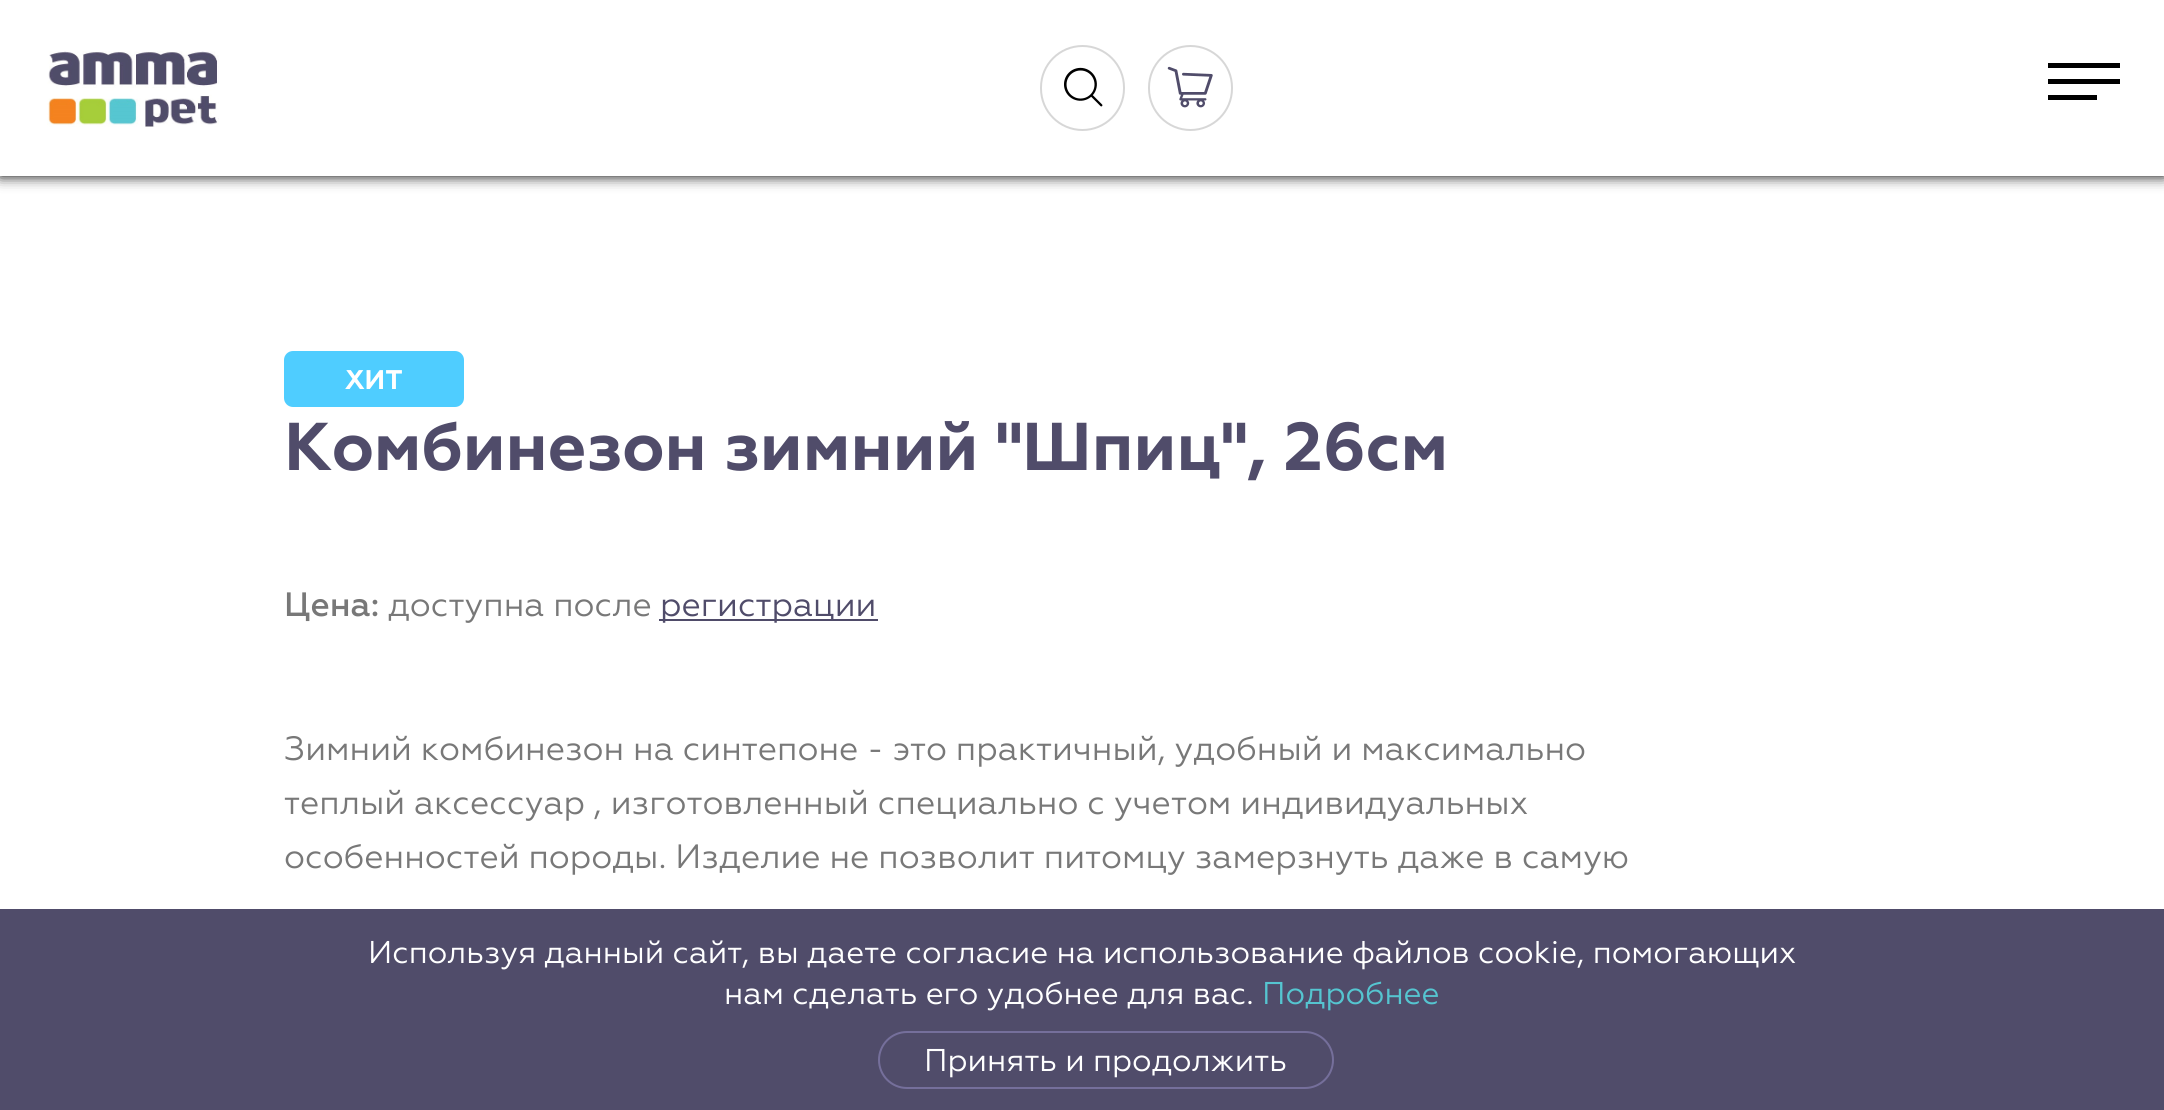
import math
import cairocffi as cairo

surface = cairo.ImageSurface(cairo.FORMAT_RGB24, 2164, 1110)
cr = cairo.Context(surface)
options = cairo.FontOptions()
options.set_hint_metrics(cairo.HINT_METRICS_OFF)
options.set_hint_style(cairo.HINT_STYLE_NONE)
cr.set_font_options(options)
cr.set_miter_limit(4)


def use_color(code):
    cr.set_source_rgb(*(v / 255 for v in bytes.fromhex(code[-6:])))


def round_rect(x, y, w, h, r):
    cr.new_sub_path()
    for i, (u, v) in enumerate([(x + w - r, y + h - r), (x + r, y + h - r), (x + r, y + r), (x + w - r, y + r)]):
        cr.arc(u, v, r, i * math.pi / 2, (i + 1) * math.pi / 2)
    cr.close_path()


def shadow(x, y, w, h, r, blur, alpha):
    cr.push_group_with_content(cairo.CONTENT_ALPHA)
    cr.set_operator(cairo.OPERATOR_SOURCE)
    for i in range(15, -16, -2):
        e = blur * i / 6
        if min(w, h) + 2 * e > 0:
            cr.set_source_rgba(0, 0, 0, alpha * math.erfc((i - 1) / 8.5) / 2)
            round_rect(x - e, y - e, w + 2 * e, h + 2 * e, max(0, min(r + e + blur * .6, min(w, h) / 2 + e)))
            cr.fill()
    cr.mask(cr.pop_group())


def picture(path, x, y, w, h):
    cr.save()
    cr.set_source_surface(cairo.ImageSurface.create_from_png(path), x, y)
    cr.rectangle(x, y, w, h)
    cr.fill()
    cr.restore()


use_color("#ffffff")
cr.paint()
cr.save()
cr.set_fill_rule(cairo.FILL_RULE_EVEN_ODD)
cr.new_path()
cr.move_to(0, 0)
cr.line_to(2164, 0)
cr.line_to(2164, 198)
cr.line_to(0, 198)
cr.close_path()
cr.move_to(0, 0)
cr.line_to(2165, 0)
cr.line_to(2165, 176)
cr.line_to(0, 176)
cr.close_path()
cr.clip()
use_color("#000000")
shadow(0, 0, 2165, 176, 0, 7, 1)
cr.restore()
picture("img1.png", 47, 51, 172, 76)
picture("img2.png", 1064, 67, 39, 40)
round_rect(1041, 46, 83, 84, 41.5)
use_color("#d7d7d7")
cr.stroke()
round_rect(1149, 46, 83, 84, 41.5)
cr.stroke()
picture("img3.png", 1167, 66, 46, 42)
use_color("#000000")
cr.rectangle(2048, 63, 72, 5)
cr.fill()
cr.rectangle(2048, 79, 72, 5)
cr.fill()
cr.rectangle(2048, 95, 49, 5)
cr.fill()
use_color("#4fcdff")
round_rect(284, 351, 180, 56, 9)
cr.fill()
cr.select_font_face("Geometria", cairo.FONT_SLANT_NORMAL, cairo.FONT_WEIGHT_BOLD)
cr.set_font_size(27)
use_color("#ffffff")
cr.move_to(345, 389)
cr.show_text("ХИТ")
cr.set_font_size(67.5)
use_color("#504c6a")
cr.move_to(284, 470)
cr.show_text("Комбинезон зимний \"Шпиц\", 26см")
cr.select_font_face("Geometria Medium")
cr.set_font_size(33.75)
use_color("#787878")
cr.move_to(284, 616)
cr.show_text("Цена:")
cr.select_font_face("Geometria")
cr.move_to(388, 616)
cr.show_text("доступна после")
use_color("#4f4b69")
cr.rectangle(659, 619, 219, 2)
cr.fill()
use_color("#504c6a")
cr.move_to(660, 616)
cr.show_text("регистрации")
use_color("#787878")
cr.move_to(284, 760)
cr.show_text("Зимний комбинезон на синтепоне - это практичный, удобный и максимально")
cr.move_to(284, 814)
cr.show_text("теплый аксессуар , изготовленный специально с учетом индивидуальных")
cr.move_to(284, 868)
cr.show_text("особенностей породы. Изделие не позволит питомцу замерзнуть даже в самую")
use_color("#504c6a")
cr.rectangle(0, 909, 2164, 201)
cr.fill()
cr.set_font_size(31.5)
use_color("#ffffff")
cr.move_to(368, 963)
cr.show_text("Используя данный сайт, вы даете согласие на использование файлов cookie, помогающих")
cr.move_to(724, 1004)
cr.show_text("нам сделать его удобнее для вас.")
use_color("#55c5d0")
cr.move_to(1262, 1004)
cr.show_text("Подробнее")
round_rect(879, 1032, 454, 56, 28)
use_color("#756f9b")
cr.stroke()
use_color("#ffffff")
cr.move_to(924, 1071)
cr.show_text("Принять и продолжить")
surface.write_to_png("result.png")
